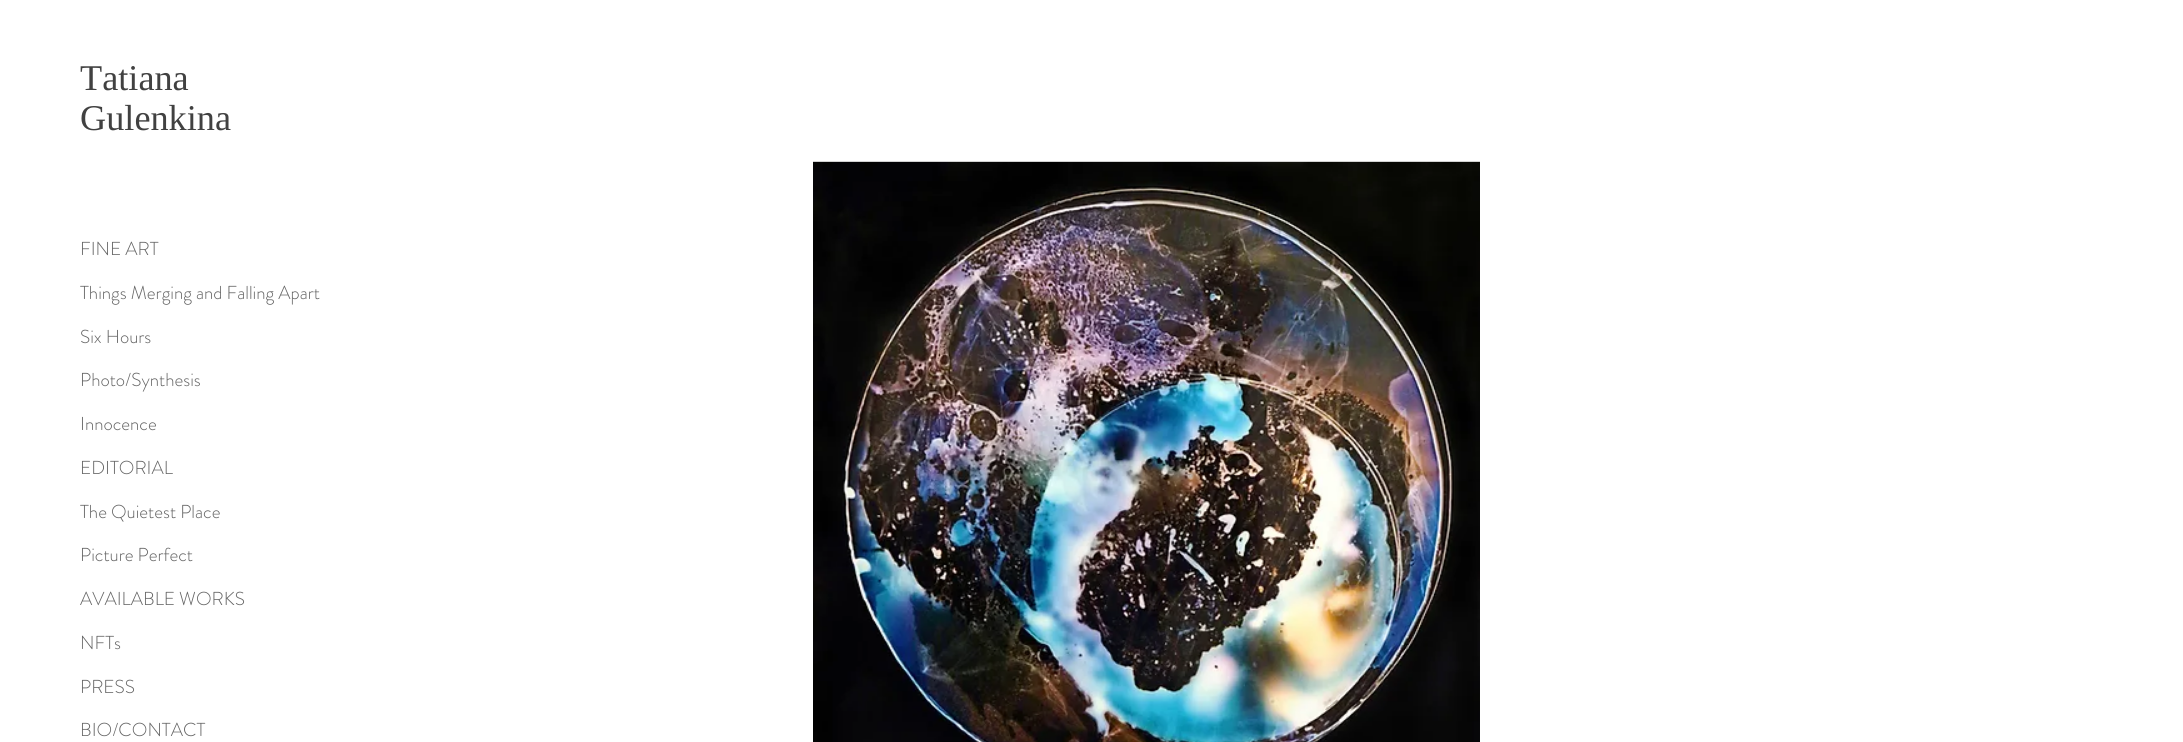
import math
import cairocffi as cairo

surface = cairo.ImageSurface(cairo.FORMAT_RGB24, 2183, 742)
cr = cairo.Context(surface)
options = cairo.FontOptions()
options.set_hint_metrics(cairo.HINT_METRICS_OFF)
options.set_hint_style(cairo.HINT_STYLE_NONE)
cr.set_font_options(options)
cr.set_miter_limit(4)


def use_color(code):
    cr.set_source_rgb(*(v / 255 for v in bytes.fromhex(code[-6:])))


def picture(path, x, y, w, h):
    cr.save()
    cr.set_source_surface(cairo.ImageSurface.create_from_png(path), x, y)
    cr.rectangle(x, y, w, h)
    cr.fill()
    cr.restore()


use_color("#ffffff")
cr.paint()
cr.select_font_face("Liberation Serif")
cr.set_font_size(36.25)
use_color("#414141")
cr.move_to(80, 90)
cr.show_text("Tatiana")
cr.move_to(80, 130)
cr.show_text("Gulenkina")
cr.select_font_face("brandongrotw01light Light")
cr.set_font_size(18.75)
use_color("#636363")
cr.move_to(80, 255)
cr.show_text("FINE ART")
cr.move_to(80, 299)
cr.show_text("Things Merging and Falling Apart")
cr.move_to(80, 343)
cr.show_text("Six Hours")
cr.move_to(80, 386)
cr.show_text("Photo/Synthesis")
cr.move_to(80, 430)
cr.show_text("Innocence")
cr.move_to(80, 474)
cr.show_text("EDITORIAL")
cr.move_to(80, 518)
cr.show_text("The Quietest Place")
cr.move_to(80, 561)
cr.show_text("Picture Perfect")
cr.move_to(80, 605)
cr.show_text("AVAILABLE WORKS")
cr.move_to(80, 649)
cr.show_text("NFTs")
cr.move_to(80, 693)
cr.show_text("PRESS")
cr.move_to(80, 736)
cr.show_text("BIO/CONTACT")
picture("img1.png", 813, 161, 667, 581)
surface.write_to_png("result.png")
